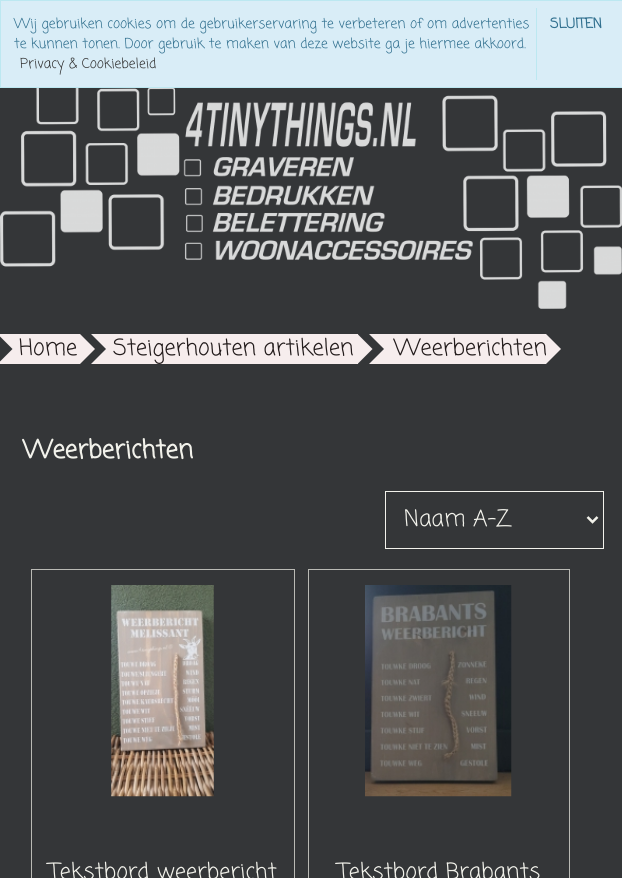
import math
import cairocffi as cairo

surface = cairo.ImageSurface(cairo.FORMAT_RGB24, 622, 878)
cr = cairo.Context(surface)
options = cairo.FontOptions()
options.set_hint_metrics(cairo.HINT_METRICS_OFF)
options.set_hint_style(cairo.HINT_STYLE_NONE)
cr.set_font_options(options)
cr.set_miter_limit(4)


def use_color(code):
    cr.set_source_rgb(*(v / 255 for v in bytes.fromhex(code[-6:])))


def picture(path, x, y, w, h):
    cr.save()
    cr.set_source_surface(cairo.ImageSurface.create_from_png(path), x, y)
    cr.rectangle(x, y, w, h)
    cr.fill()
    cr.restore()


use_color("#343638")
cr.paint()
use_color("#d9edf7")
cr.rectangle(0.5, 0.5, 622, 87)
cr.fill_preserve()
use_color("#bce8f1")
cr.set_line_width(1)
cr.stroke()
cr.select_font_face("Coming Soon")
cr.set_font_size(13.75)
use_color("#31708f")
cr.move_to(14, 28)
cr.show_text("Wij gebruiken cookies om de gebruikerservaring te verbeteren of om advertenties")
cr.move_to(14, 48)
cr.show_text("te kunnen tonen. Door gebruik te maken van deze website ga je hiermee akkoord.")
use_color("#333333")
cr.move_to(20, 68)
cr.show_text("Privacy & Cookiebeleid")
use_color("#bce8f1")
cr.rectangle(536, 8, 1, 72)
cr.fill()
cr.select_font_face("Coming Soon", cairo.FONT_SLANT_NORMAL, cairo.FONT_WEIGHT_BOLD)
use_color("#31708f")
cr.move_to(550, 28)
cr.show_text("SLUITEN")
picture("img1.png", 0, 88, 622, 221)
use_color("#f6eded")
cr.rectangle(0, 334, 80, 30)
cr.fill()
use_color("#343638")
cr.new_path()
cr.move_to(-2.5, 364)
cr.line_to(-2.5, 334)
cr.line_to(12.5, 349)
cr.close_path()
cr.fill()
cr.select_font_face("Coming Soon")
cr.set_font_size(22.5)
use_color("#221b1b")
cr.move_to(19, 355)
cr.show_text("Home")
use_color("#f6eded")
cr.rectangle(91, 334, 267, 30)
cr.fill()
use_color("#343638")
cr.new_path()
cr.move_to(91, 364)
cr.line_to(91, 334)
cr.line_to(106, 349)
cr.close_path()
cr.fill()
use_color("#f6eded")
cr.new_path()
cr.move_to(80, 364)
cr.line_to(80, 334)
cr.line_to(95, 349)
cr.close_path()
cr.fill()
use_color("#221b1b")
cr.move_to(113, 355)
cr.show_text("Steigerhouten artikelen")
use_color("#f6eded")
cr.rectangle(369, 334, 177, 30)
cr.fill()
use_color("#343638")
cr.new_path()
cr.move_to(369, 364)
cr.line_to(369, 334)
cr.line_to(384, 349)
cr.close_path()
cr.fill()
use_color("#f6eded")
cr.new_path()
cr.move_to(357.5, 364)
cr.line_to(357.5, 334)
cr.line_to(372.5, 349)
cr.close_path()
cr.fill()
use_color("#221b1b")
cr.move_to(394, 355)
cr.show_text("Weerberichten")
use_color("#f6eded")
cr.new_path()
cr.move_to(546, 364)
cr.line_to(546, 334)
cr.line_to(561, 349)
cr.close_path()
cr.fill()
cr.select_font_face("Coming Soon", cairo.FONT_SLANT_NORMAL, cairo.FONT_WEIGHT_BOLD)
cr.set_font_size(25)
use_color("#f2f2eb")
cr.move_to(23, 458)
cr.show_text("Weerberichten")
cr.rectangle(385.5, 491.5, 218, 57)
cr.stroke()
cr.new_path()
cr.move_to(587.5, 517)
cr.line_to(592.5, 522)
cr.line_to(597.5, 517)
cr.set_line_width(2.5)
cr.stroke()
cr.select_font_face("Coming Soon")
cr.set_font_size(22.5)
cr.move_to(404, 526)
cr.show_text("Naam A-Z")
cr.rectangle(31.5, 569.5, 263, 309)
use_color("#babab5")
cr.set_line_width(1)
cr.stroke()
picture("img2.png", 111, 585, 103, 212)
use_color("#f2f2eb")
cr.move_to(49, 879)
cr.show_text("Tekstbord weerbericht")
cr.rectangle(308.5, 569.5, 261, 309)
use_color("#babab5")
cr.stroke()
picture("img3.png", 365, 585, 147, 212)
use_color("#f2f2eb")
cr.move_to(338, 879)
cr.show_text("Tekstbord Brabants")
surface.write_to_png("result.png")
